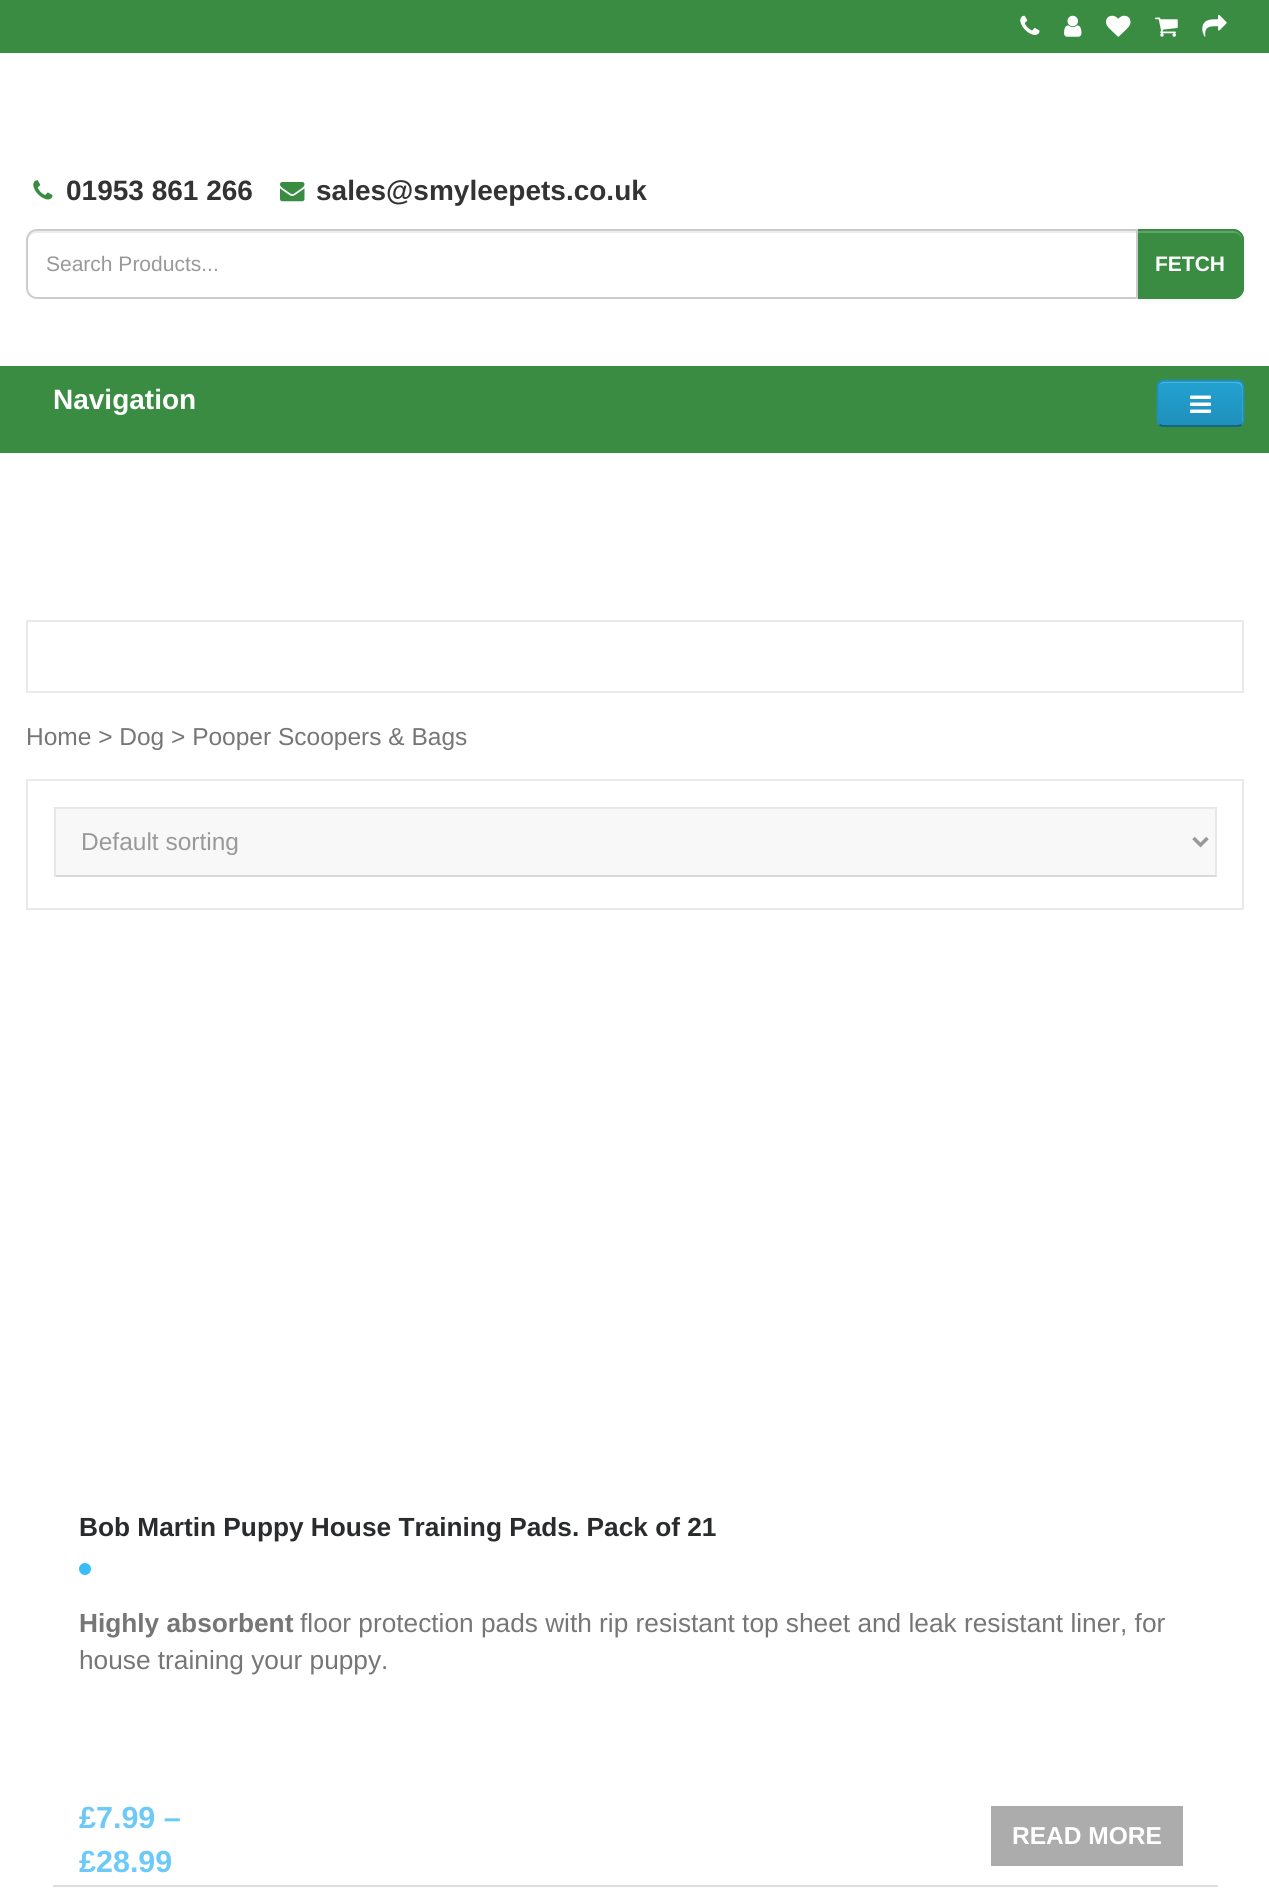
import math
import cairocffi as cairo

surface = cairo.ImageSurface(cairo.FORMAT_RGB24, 1269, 1898)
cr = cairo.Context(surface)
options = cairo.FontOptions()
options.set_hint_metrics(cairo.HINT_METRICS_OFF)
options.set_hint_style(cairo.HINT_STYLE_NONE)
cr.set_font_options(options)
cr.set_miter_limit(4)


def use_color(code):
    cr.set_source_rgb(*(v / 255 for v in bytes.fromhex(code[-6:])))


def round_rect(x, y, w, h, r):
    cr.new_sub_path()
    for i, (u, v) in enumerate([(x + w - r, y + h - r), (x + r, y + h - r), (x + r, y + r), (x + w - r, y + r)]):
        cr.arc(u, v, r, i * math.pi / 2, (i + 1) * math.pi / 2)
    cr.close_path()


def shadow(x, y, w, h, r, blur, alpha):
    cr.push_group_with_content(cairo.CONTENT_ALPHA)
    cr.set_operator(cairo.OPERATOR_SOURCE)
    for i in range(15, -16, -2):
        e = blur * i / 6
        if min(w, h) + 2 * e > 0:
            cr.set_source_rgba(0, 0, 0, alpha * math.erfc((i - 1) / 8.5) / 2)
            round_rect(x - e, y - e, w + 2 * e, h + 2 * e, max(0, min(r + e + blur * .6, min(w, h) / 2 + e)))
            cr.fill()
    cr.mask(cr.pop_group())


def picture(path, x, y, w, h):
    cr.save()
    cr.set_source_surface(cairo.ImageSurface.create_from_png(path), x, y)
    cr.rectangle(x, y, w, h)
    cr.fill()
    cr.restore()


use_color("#ffffff")
cr.paint()
use_color("#398c42")
cr.rectangle(0, 0, 1269, 53)
cr.fill()
picture("img1.png", 1020, 15, 20, 20)
picture("img2.png", 1064, 15, 18, 22)
picture("img3.png", 1106, 15, 25, 22)
picture("img4.png", 1155, 17, 23, 20)
picture("img5.png", 1202, 14, 25, 23)
picture("img6.png", 33, 180, 20, 20)
cr.select_font_face("Liberation Sans", cairo.FONT_SLANT_NORMAL, cairo.FONT_WEIGHT_BOLD)
cr.set_font_size(28)
use_color("#333333")
cr.move_to(66, 200)
cr.show_text("01953 861 266")
picture("img7.png", 280, 182, 25, 20)
cr.move_to(316, 200)
cr.show_text("sales@smyleepets.co.uk")
use_color("#000000")
shadow(1136, 231, 108, 70, 11, 2, 0.05)
use_color("#398c42")
cr.new_path()
cr.move_to(1136, 229)
cr.line_to(1233, 229)
cr.curve_to(1239, 229, 1244, 234, 1244, 240)
cr.line_to(1244, 288)
cr.curve_to(1244, 294, 1239, 299, 1233, 299)
cr.line_to(1136, 299)
cr.close_path()
cr.fill()
use_color("#61a368")
cr.new_path()
cr.move_to(1138, 233)
cr.line_to(1234, 233)
cr.curve_to(1239, 233, 1242, 237, 1242, 242)
cr.line_to(1242, 290)
cr.curve_to(1242, 292, 1242, 293, 1241, 295)
cr.curve_to(1242, 293, 1243, 291, 1243, 289)
cr.line_to(1243, 240)
cr.curve_to(1243, 235, 1239, 231, 1234, 231)
cr.line_to(1138, 231)
cr.close_path()
cr.fill()
cr.new_path()
cr.move_to(1137, 230)
cr.line_to(1233, 230)
cr.curve_to(1238.5, 230, 1243, 234.5, 1243, 240)
cr.line_to(1243, 288)
cr.curve_to(1243, 293.5, 1238.5, 298, 1233, 298)
cr.line_to(1137, 298)
cr.close_path()
use_color("#398c42")
cr.stroke()
use_color("#ffffff")
cr.new_path()
cr.move_to(37, 229)
cr.line_to(1138, 229)
cr.line_to(1138, 299)
cr.line_to(37, 299)
cr.curve_to(31, 299, 26, 294, 26, 288)
cr.line_to(26, 240)
cr.curve_to(26, 234, 31, 229, 37, 229)
cr.close_path()
cr.fill()
use_color("#ececec")
cr.new_path()
cr.move_to(37, 233)
cr.line_to(1136, 233)
cr.line_to(1136, 231)
cr.line_to(37, 231)
cr.curve_to(31, 231, 28, 236, 28, 242)
cr.curve_to(28, 237, 32, 233, 37, 233)
cr.close_path()
cr.fill()
cr.new_path()
cr.move_to(37, 230)
cr.line_to(1137, 230)
cr.line_to(1137, 298)
cr.line_to(37, 298)
cr.curve_to(31.5, 298, 27, 293.5, 27, 288)
cr.line_to(27, 240)
cr.curve_to(27, 234.5, 31.5, 230, 37, 230)
cr.close_path()
use_color("#cccccc")
cr.stroke()
cr.select_font_face("Liberation Sans")
cr.set_font_size(21)
use_color("#999999")
cr.move_to(46, 271)
cr.show_text("Search Products...")
cr.select_font_face("Liberation Sans", cairo.FONT_SLANT_NORMAL, cairo.FONT_WEIGHT_BOLD)
use_color("#ffffff")
cr.move_to(1155, 271)
cr.show_text("FETCH")
use_color("#398c42")
cr.rectangle(0, 366, 1269, 87)
cr.fill()
cr.set_font_size(28)
use_color("#ffffff")
cr.move_to(53, 409)
cr.show_text("Navigation")
use_color("#229ac8")
round_rect(1157, 380, 87, 47, 7)
cr.fill()
cr.save()
round_rect(1157, 380, 87, 47, 7)
cr.clip()
gradient = cairo.LinearGradient(1201, 382, 1201, 425)
gradient.add_color_stop_rgba(0, 0.137, 0.631, 0.82, 1)
gradient.add_color_stop_rgba(1, 0.122, 0.565, 0.733, 1)
cr.set_source(gradient)
cr.rectangle(1157, 382, 87, 43)
cr.fill()
cr.restore()
cr.set_source_rgba(1, 1, 1, 0.2)
cr.new_path()
cr.move_to(1164, 383)
cr.line_to(1225, 383)
cr.curve_to(1244, 383, 1242, 382, 1242, 399)
cr.line_to(1242, 423)
cr.curve_to(1243, 422, 1243, 421, 1243, 420)
cr.line_to(1243, 387)
cr.curve_to(1243, 384, 1241, 382, 1238, 382)
cr.line_to(1164, 382)
cr.curve_to(1162, 382, 1160, 383, 1159, 385)
cr.curve_to(1160, 384, 1162, 383, 1164, 383)
cr.close_path()
cr.fill()
cr.new_path()
cr.move_to(1241.5, 424.5)
cr.curve_to(1240.5, 425.5, 1239, 426, 1237, 426)
cr.line_to(1164, 426)
cr.curve_to(1162, 426, 1160.5, 425.5, 1159.5, 424.5)
use_color("#145e7a")
cr.set_line_width(1.8)
cr.stroke()
cr.new_path()
cr.move_to(1159.5, 424.5)
cr.curve_to(1158.5, 423, 1157.5, 421.5, 1157.5, 420)
cr.line_to(1157.5, 387)
cr.curve_to(1157.5, 385, 1158.5, 383.5, 1159.5, 382.5)
cr.curve_to(1160.5, 381.5, 1162, 380.5, 1164, 380.5)
cr.line_to(1237, 380.5)
cr.curve_to(1239, 380.5, 1240.5, 381.5, 1241.5, 382.5)
cr.curve_to(1242.5, 383.5, 1243.5, 385, 1243.5, 387)
cr.line_to(1243.5, 420)
cr.curve_to(1243.5, 421.5, 1242.5, 423, 1241.5, 424.5)
use_color("#1f90bb")
cr.stroke()
picture("img8.png", 1190, 395, 21, 18)
cr.rectangle(27, 621, 1216, 71)
use_color("#eaeaea")
cr.set_line_width(2)
cr.stroke()
cr.select_font_face("Liberation Sans")
cr.set_font_size(24.5)
use_color("#767676")
cr.move_to(26, 745)
cr.show_text("Home > Dog > Pooper Scoopers & Bags")
cr.rectangle(27, 780, 1216, 129)
use_color("#eaeaea")
cr.stroke()
use_color("#f8f8f8")
cr.rectangle(56, 809, 1159, 66)
cr.fill()
use_color("#e7e7e7")
cr.rectangle(54, 807, 1162, 2)
cr.fill()
cr.rectangle(1215, 807, 2, 70)
cr.fill()
use_color("#d9d9d9")
cr.rectangle(54, 875, 1162, 2)
cr.fill()
use_color("#e7e7e7")
cr.rectangle(54, 807, 2, 70)
cr.fill()
cr.new_path()
cr.move_to(1193.5, 838)
cr.line_to(1200.5, 845)
cr.line_to(1207.5, 838)
use_color("#999999")
cr.set_line_width(3.5)
cr.stroke()
cr.move_to(81, 850)
cr.show_text("Default sorting")
cr.select_font_face("Liberation Sans", cairo.FONT_SLANT_NORMAL, cairo.FONT_WEIGHT_BOLD)
cr.set_font_size(26.25)
use_color("#2a2b2c")
cr.move_to(79, 1536)
cr.show_text("Bob Martin Puppy House Training Pads. Pack of 21")
use_color("#3bbdfb")
cr.new_path()
cr.arc(85, 1569, 6, 0, 2 * math.pi)
cr.fill()
use_color("#767676")
cr.move_to(79, 1632)
cr.show_text("Highly absorbent")
cr.select_font_face("Liberation Sans")
cr.move_to(300, 1632)
cr.show_text("floor protection pads with rip resistant top sheet and leak resistant liner, for")
cr.move_to(79, 1669)
cr.show_text("house training your puppy.")
use_color("#dddddd")
cr.rectangle(53, 1885, 1165, 2)
cr.fill()
cr.select_font_face("Liberation Sans", cairo.FONT_SLANT_NORMAL, cairo.FONT_WEIGHT_BOLD)
cr.set_font_size(30.5)
use_color("#6dcaf8")
cr.move_to(79, 1828)
cr.show_text("£7.99 –")
cr.move_to(79, 1872)
cr.show_text("£28.99")
use_color("#acacac")
cr.rectangle(991, 1806, 192, 60)
cr.fill()
cr.set_font_size(24.5)
use_color("#ffffff")
cr.move_to(1012, 1844)
cr.show_text("READ MORE")
surface.write_to_png("result.png")
